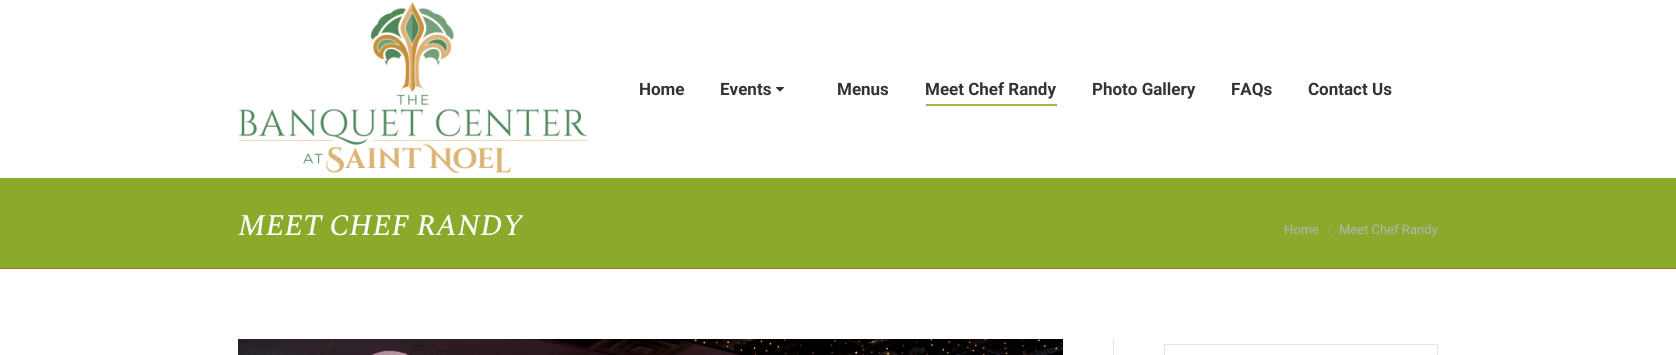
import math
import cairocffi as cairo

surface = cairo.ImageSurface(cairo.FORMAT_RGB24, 1676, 355)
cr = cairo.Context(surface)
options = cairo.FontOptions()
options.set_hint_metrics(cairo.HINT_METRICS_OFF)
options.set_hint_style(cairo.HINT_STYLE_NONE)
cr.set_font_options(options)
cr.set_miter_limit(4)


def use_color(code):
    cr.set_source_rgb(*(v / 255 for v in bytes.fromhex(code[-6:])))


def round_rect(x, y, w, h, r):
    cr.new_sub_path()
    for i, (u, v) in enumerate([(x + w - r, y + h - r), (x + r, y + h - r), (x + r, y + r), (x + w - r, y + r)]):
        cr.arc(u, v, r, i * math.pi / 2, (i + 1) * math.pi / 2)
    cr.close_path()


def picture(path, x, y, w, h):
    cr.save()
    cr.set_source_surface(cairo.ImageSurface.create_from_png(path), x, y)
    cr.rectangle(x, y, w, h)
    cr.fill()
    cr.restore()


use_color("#ffffff")
cr.paint()
picture("img1.png", 238, 2, 350, 172)
cr.select_font_face("Roboto", cairo.FONT_SLANT_NORMAL, cairo.FONT_WEIGHT_BOLD)
cr.set_font_size(17)
use_color("#333333")
cr.move_to(639, 95)
cr.show_text("Home")
cr.move_to(720, 95)
cr.show_text("Events")
picture("img2.png", 776, 87, 8, 5)
cr.move_to(837, 95)
cr.show_text("Menus")
cr.move_to(925, 95)
cr.show_text("Meet Chef Randy")
use_color("#9cb74b")
cr.rectangle(926, 104, 131, 2)
cr.fill()
use_color("#333333")
cr.move_to(1092, 95)
cr.show_text("Photo Gallery")
cr.move_to(1231, 95)
cr.show_text("FAQs")
cr.move_to(1308, 95)
cr.show_text("Contact Us")
use_color("#8baa2b")
cr.rectangle(0, 178, 1676, 90)
cr.fill()
use_color("#99702a")
cr.rectangle(0, 268, 1676, 1)
cr.fill()
cr.save()
cr.rectangle(238, 206, 285, 40)
cr.clip()
cr.select_font_face("Spectral SC Medium", cairo.FONT_SLANT_ITALIC)
cr.set_font_size(30)
use_color("#ffffff")
cr.move_to(238, 235)
cr.show_text("MEET CHEF RANDY")
cr.restore()
cr.select_font_face("Roboto")
cr.set_font_size(13)
use_color("#b4b5bb")
cr.move_to(1284, 234)
cr.show_text("Home")
use_color("#a0b073")
cr.move_to(1327, 234)
cr.show_text("/")
use_color("#b4b5bb")
cr.move_to(1339, 234)
cr.show_text("Meet Chef Randy")
picture("img3.png", 238, 339, 825, 16)
use_color("#e7e7e7")
cr.rectangle(1113, 339, 1, 16)
cr.fill()
round_rect(1164.5, 344.5, 273, 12, 0.5)
use_color("#e5e5e5")
cr.set_line_width(1)
cr.stroke()
surface.write_to_png("result.png")
